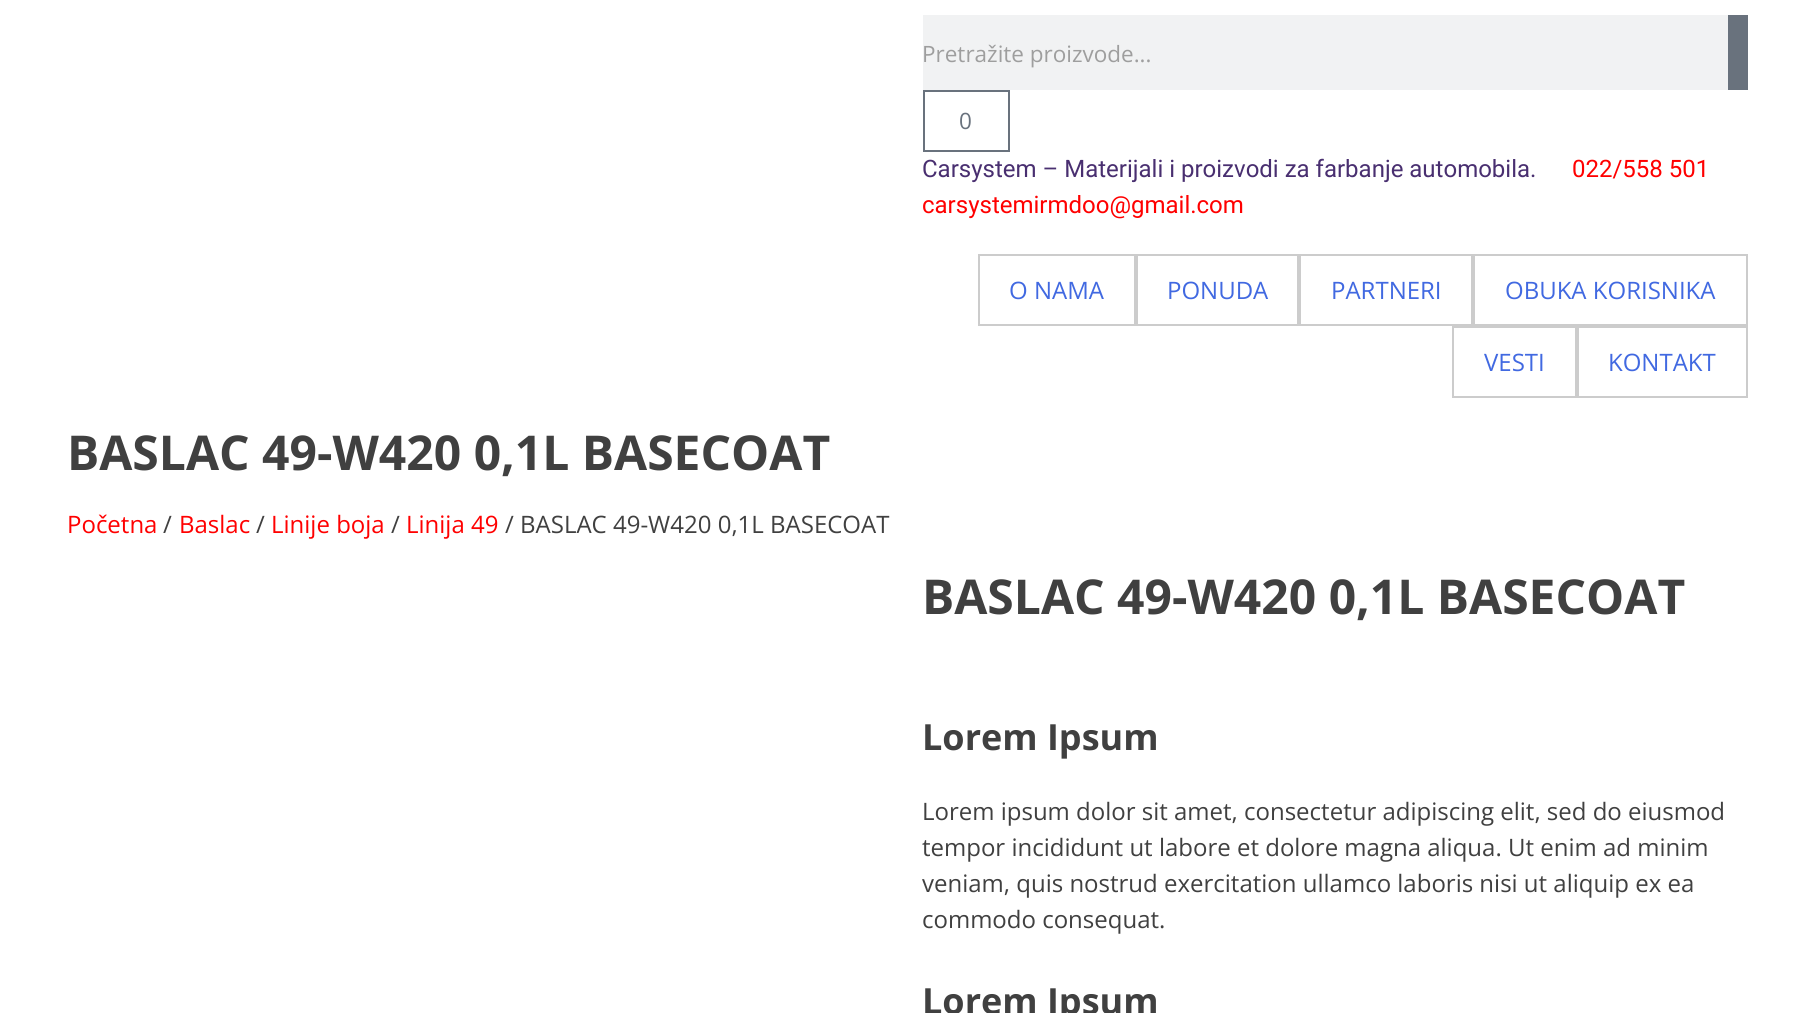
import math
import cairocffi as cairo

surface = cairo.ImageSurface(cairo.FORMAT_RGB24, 1813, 1013)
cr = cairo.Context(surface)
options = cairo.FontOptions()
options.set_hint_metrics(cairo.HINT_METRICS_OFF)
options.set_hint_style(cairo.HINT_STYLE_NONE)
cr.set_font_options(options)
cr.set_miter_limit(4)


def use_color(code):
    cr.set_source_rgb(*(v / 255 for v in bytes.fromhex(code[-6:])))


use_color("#ffffff")
cr.paint()
use_color("#f1f2f3")
cr.rectangle(923, 15, 805, 75)
cr.fill()
cr.select_font_face("Open Sans")
cr.set_font_size(22.5)
use_color("#9e9e9e")
cr.move_to(922, 62)
cr.show_text("Pretražite proizvode...")
use_color("#69727d")
cr.rectangle(1728, 15, 20, 75)
cr.fill()
cr.rectangle(924, 91, 85, 60)
cr.stroke()
cr.move_to(959, 129)
cr.show_text("0")
cr.select_font_face("Roboto")
cr.set_font_size(24)
use_color("#492f70")
cr.move_to(922, 177)
cr.show_text("Carsystem – Materijali i proizvodi za farbanje automobila.")
use_color("#ff0000")
cr.move_to(1572, 177)
cr.show_text("022/558 501")
cr.move_to(922, 213)
cr.show_text("carsystemirmdoo@gmail.com")
cr.rectangle(979, 255, 156, 70)
use_color("#cccccc")
cr.stroke()
cr.select_font_face("Open Sans")
use_color("#4169e1")
cr.move_to(1009, 299)
cr.show_text("O NAMA")
cr.rectangle(1137, 255, 161, 70)
use_color("#cccccc")
cr.stroke()
use_color("#4169e1")
cr.move_to(1167, 299)
cr.show_text("PONUDA")
cr.rectangle(1300, 255, 172, 70)
use_color("#cccccc")
cr.stroke()
use_color("#4169e1")
cr.move_to(1331, 299)
cr.show_text("PARTNERI")
cr.rectangle(1474, 255, 273, 70)
use_color("#cccccc")
cr.stroke()
use_color("#4169e1")
cr.move_to(1505, 299)
cr.show_text("OBUKA KORISNIKA")
cr.rectangle(1453, 327, 123, 70)
use_color("#cccccc")
cr.stroke()
use_color("#4169e1")
cr.move_to(1484, 371)
cr.show_text("VESTI")
cr.rectangle(1578, 327, 169, 70)
use_color("#cccccc")
cr.stroke()
use_color("#4169e1")
cr.move_to(1608, 371)
cr.show_text("KONTAKT")
cr.select_font_face("Open Sans", cairo.FONT_SLANT_NORMAL, cairo.FONT_WEIGHT_BOLD)
cr.set_font_size(48)
use_color("#404040")
cr.move_to(67, 470)
cr.show_text("BASLAC 49-W420 0,1L BASECOAT")
cr.select_font_face("Open Sans")
cr.set_font_size(24)
use_color("#ff0000")
cr.move_to(67, 533)
cr.show_text("Početna")
use_color("#404040")
cr.move_to(163, 533)
cr.show_text("/")
use_color("#ff0000")
cr.move_to(179, 533)
cr.show_text("Baslac")
use_color("#404040")
cr.move_to(256, 533)
cr.show_text("/")
use_color("#ff0000")
cr.move_to(271, 533)
cr.show_text("Linije boja")
use_color("#404040")
cr.move_to(391, 533)
cr.show_text("/")
use_color("#ff0000")
cr.move_to(406, 533)
cr.show_text("Linija 49")
use_color("#404040")
cr.move_to(505, 533)
cr.show_text("/ BASLAC 49-W420 0,1L BASECOAT")
cr.select_font_face("Open Sans", cairo.FONT_SLANT_NORMAL, cairo.FONT_WEIGHT_BOLD)
cr.set_font_size(48)
cr.move_to(922, 614)
cr.show_text("BASLAC 49-W420 0,1L BASECOAT")
cr.set_font_size(36)
cr.move_to(922, 750)
cr.show_text("Lorem Ipsum")
cr.select_font_face("Open Sans")
cr.set_font_size(24)
cr.move_to(922, 820)
cr.show_text("Lorem ipsum dolor sit amet, consectetur adipiscing elit, sed do eiusmod")
cr.move_to(922, 856)
cr.show_text("tempor incididunt ut labore et dolore magna aliqua. Ut enim ad minim")
cr.move_to(922, 892)
cr.show_text("veniam, quis nostrud exercitation ullamco laboris nisi ut aliquip ex ea")
cr.move_to(922, 928)
cr.show_text("commodo consequat.")
cr.select_font_face("Open Sans", cairo.FONT_SLANT_NORMAL, cairo.FONT_WEIGHT_BOLD)
cr.set_font_size(36)
cr.move_to(922, 1014)
cr.show_text("Lorem Ipsum")
surface.write_to_png("result.png")
